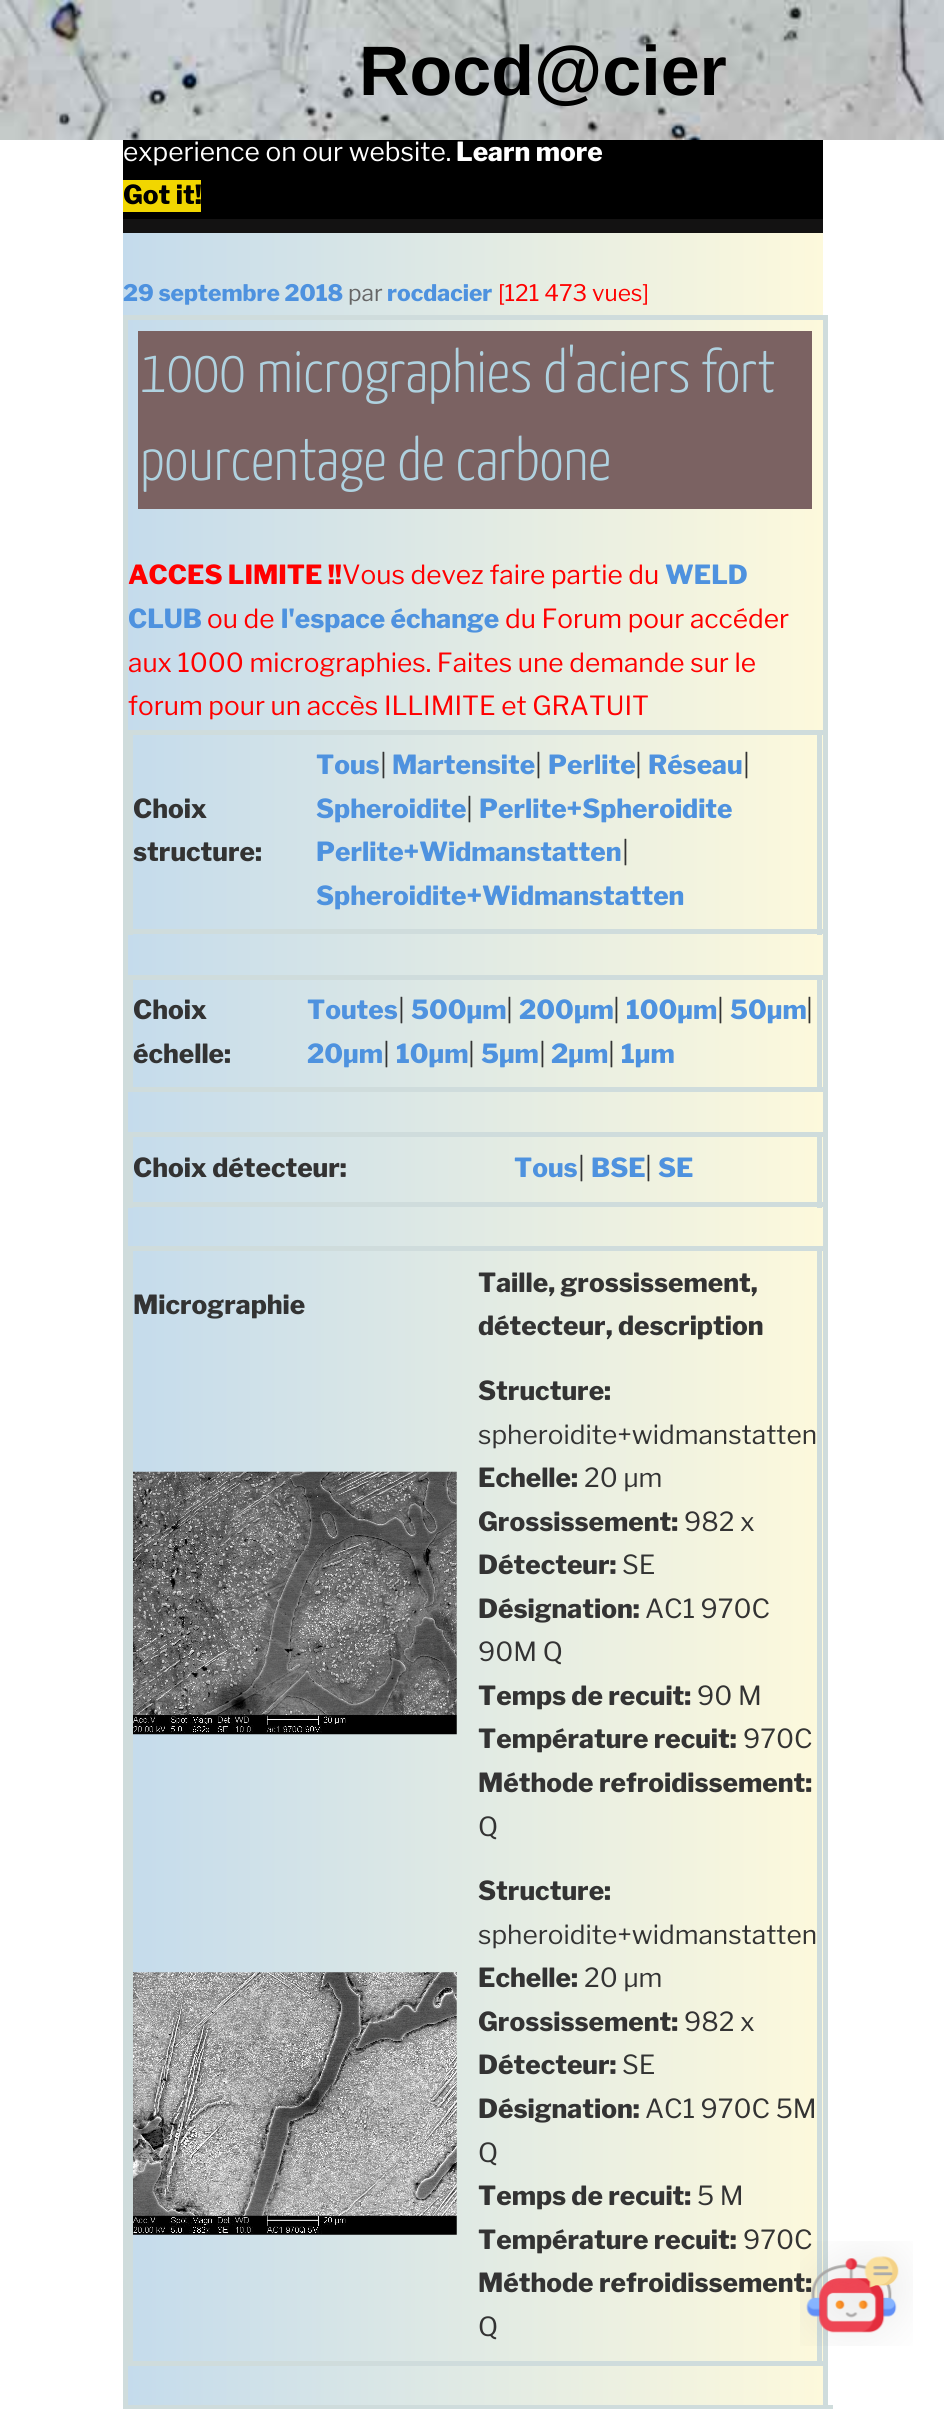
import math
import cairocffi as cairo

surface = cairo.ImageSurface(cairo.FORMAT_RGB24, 944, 2409)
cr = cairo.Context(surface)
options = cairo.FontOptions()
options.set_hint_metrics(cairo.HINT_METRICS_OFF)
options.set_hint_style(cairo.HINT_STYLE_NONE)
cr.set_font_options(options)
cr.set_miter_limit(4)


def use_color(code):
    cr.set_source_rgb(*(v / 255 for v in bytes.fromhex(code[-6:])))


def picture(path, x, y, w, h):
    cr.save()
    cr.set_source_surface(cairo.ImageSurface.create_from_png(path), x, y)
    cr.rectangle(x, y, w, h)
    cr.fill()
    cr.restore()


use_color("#ffffff")
cr.paint()
gradient = cairo.LinearGradient(122, 1657, 823, 1657)
gradient.add_color_stop_rgba(0, 0.769, 0.859, 0.925, 1)
gradient.add_color_stop_rgba(1, 0.992, 0.976, 0.863, 1)
cr.set_source(gradient)
cr.rectangle(123, 233, 700, 2172)
cr.fill()
use_color("#cfdcdc")
cr.rectangle(123, 315, 705, 5)
cr.fill()
cr.rectangle(128, 2405, 705, 4)
cr.fill()
cr.rectangle(823, 315, 5, 2094)
cr.fill()
cr.rectangle(123, 315, 5, 2094)
cr.fill()
picture("img1.png", 0, 0, 944, 140)
cr.select_font_face("Liberation Sans", cairo.FONT_SLANT_NORMAL, cairo.FONT_WEIGHT_BOLD)
cr.set_font_size(70)
use_color("#000000")
cr.move_to(359, 95)
cr.show_text("Rocd@cier")
use_color("#7b6262")
cr.rectangle(138, 331, 674, 178)
cr.fill()
cr.select_font_face("Yanone Kaffeesatz Light")
cr.set_font_size(60.4)
use_color("#afd2e0")
cr.move_to(140, 392)
cr.show_text("1000 micrographies d'aciers fort")
cr.move_to(140, 480)
cr.show_text("pourcentage de carbone")
cr.select_font_face("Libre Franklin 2 Thin")
cr.set_font_size(26.25)
use_color("#ff0000")
cr.move_to(128, 584)
cr.show_text("ACCES LIMITE !!")
cr.select_font_face("Libre Franklin Thin")
cr.move_to(342, 584)
cr.show_text("Vous devez faire partie du")
cr.select_font_face("Libre Franklin 2 Thin")
use_color("#4e92df")
cr.move_to(665, 584)
cr.show_text("WELD")
cr.move_to(128, 628)
cr.show_text("CLUB")
cr.select_font_face("Libre Franklin Thin")
use_color("#ff0000")
cr.move_to(207, 628)
cr.show_text("ou de")
cr.select_font_face("Libre Franklin 2 Thin")
use_color("#4e92df")
cr.move_to(281, 628)
cr.show_text("l'espace échange")
cr.select_font_face("Libre Franklin Thin")
use_color("#ff0000")
cr.move_to(505, 628)
cr.show_text("du Forum pour accéder")
cr.move_to(128, 672)
cr.show_text("aux 1000 micrographies. Faites une demande sur le")
cr.move_to(128, 715)
cr.show_text("forum pour un accès ILLIMITE et GRATUIT")
use_color("#cfdcdc")
cr.rectangle(128, 730, 695, 5)
cr.fill()
cr.rectangle(817, 730, 5, 205)
cr.fill()
cr.rectangle(128, 929, 695, 5)
cr.fill()
cr.rectangle(128, 730, 5, 205)
cr.fill()
cr.select_font_face("Libre Franklin 2 Thin")
use_color("#333333")
cr.move_to(133, 818)
cr.show_text("Choix")
cr.move_to(133, 861)
cr.show_text("structure:")
use_color("#4e92df")
cr.move_to(316, 774)
cr.show_text("Tous")
cr.select_font_face("Libre Franklin Thin")
use_color("#333333")
cr.move_to(380, 774)
cr.show_text("|")
cr.select_font_face("Libre Franklin 2 Thin")
use_color("#4e92df")
cr.move_to(392, 774)
cr.show_text("Martensite")
cr.select_font_face("Libre Franklin Thin")
use_color("#333333")
cr.move_to(535, 774)
cr.show_text("|")
cr.select_font_face("Libre Franklin 2 Thin")
use_color("#4e92df")
cr.move_to(548, 774)
cr.show_text("Perlite")
cr.select_font_face("Libre Franklin Thin")
use_color("#333333")
cr.move_to(635, 774)
cr.show_text("|")
cr.select_font_face("Libre Franklin 2 Thin")
use_color("#4e92df")
cr.move_to(648, 774)
cr.show_text("Réseau")
cr.select_font_face("Libre Franklin Thin")
use_color("#333333")
cr.move_to(743, 774)
cr.show_text("|")
cr.select_font_face("Libre Franklin 2 Thin")
use_color("#4e92df")
cr.move_to(316, 818)
cr.show_text("Spheroidite")
cr.select_font_face("Libre Franklin Thin")
use_color("#333333")
cr.move_to(466, 818)
cr.show_text("|")
cr.select_font_face("Libre Franklin 2 Thin")
use_color("#4e92df")
cr.move_to(479, 818)
cr.show_text("Perlite+Spheroidite")
cr.move_to(316, 861)
cr.show_text("Perlite+Widmanstatten")
cr.select_font_face("Libre Franklin Thin")
use_color("#333333")
cr.move_to(622, 861)
cr.show_text("|")
cr.select_font_face("Libre Franklin 2 Thin")
use_color("#4e92df")
cr.move_to(316, 905)
cr.show_text("Spheroidite+Widmanstatten")
use_color("#cfdcdc")
cr.rectangle(128, 975, 695, 5)
cr.fill()
cr.rectangle(817, 975, 5, 117)
cr.fill()
cr.rectangle(128, 1087, 695, 5)
cr.fill()
cr.rectangle(128, 975, 5, 117)
cr.fill()
use_color("#333333")
cr.move_to(133, 1019)
cr.show_text("Choix")
cr.move_to(133, 1063)
cr.show_text("échelle:")
use_color("#4e92df")
cr.move_to(307, 1019)
cr.show_text("Toutes")
cr.select_font_face("Libre Franklin Thin")
use_color("#333333")
cr.move_to(398, 1019)
cr.show_text("|")
cr.select_font_face("Libre Franklin 2 Thin")
use_color("#4e92df")
cr.move_to(411, 1019)
cr.show_text("500µm")
cr.select_font_face("Libre Franklin Thin")
use_color("#333333")
cr.move_to(506, 1019)
cr.show_text("|")
cr.select_font_face("Libre Franklin 2 Thin")
use_color("#4e92df")
cr.move_to(519, 1019)
cr.show_text("200µm")
cr.select_font_face("Libre Franklin Thin")
use_color("#333333")
cr.move_to(613, 1019)
cr.show_text("|")
cr.select_font_face("Libre Franklin 2 Thin")
use_color("#4e92df")
cr.move_to(626, 1019)
cr.show_text("100µm")
cr.select_font_face("Libre Franklin Thin")
use_color("#333333")
cr.move_to(717, 1019)
cr.show_text("|")
cr.select_font_face("Libre Franklin 2 Thin")
use_color("#4e92df")
cr.move_to(730, 1019)
cr.show_text("50µm")
cr.select_font_face("Libre Franklin Thin")
use_color("#333333")
cr.move_to(806, 1019)
cr.show_text("|")
cr.select_font_face("Libre Franklin 2 Thin")
use_color("#4e92df")
cr.move_to(307, 1063)
cr.show_text("20µm")
cr.select_font_face("Libre Franklin Thin")
use_color("#333333")
cr.move_to(383, 1063)
cr.show_text("|")
cr.select_font_face("Libre Franklin 2 Thin")
use_color("#4e92df")
cr.move_to(396, 1063)
cr.show_text("10µm")
cr.select_font_face("Libre Franklin Thin")
use_color("#333333")
cr.move_to(468, 1063)
cr.show_text("|")
cr.select_font_face("Libre Franklin 2 Thin")
use_color("#4e92df")
cr.move_to(481, 1063)
cr.show_text("5µm")
cr.select_font_face("Libre Franklin Thin")
use_color("#333333")
cr.move_to(539, 1063)
cr.show_text("|")
cr.select_font_face("Libre Franklin 2 Thin")
use_color("#4e92df")
cr.move_to(551, 1063)
cr.show_text("2µm")
cr.select_font_face("Libre Franklin Thin")
use_color("#333333")
cr.move_to(608, 1063)
cr.show_text("|")
cr.select_font_face("Libre Franklin 2 Thin")
use_color("#4e92df")
cr.move_to(621, 1063)
cr.show_text("1µm")
use_color("#cfdcdc")
cr.rectangle(128, 1132, 695, 5)
cr.fill()
cr.rectangle(817, 1132, 5, 76)
cr.fill()
cr.rectangle(128, 1202, 695, 5)
cr.fill()
cr.rectangle(128, 1132, 5, 76)
cr.fill()
use_color("#333333")
cr.move_to(133, 1177)
cr.show_text("Choix détecteur:")
use_color("#4e92df")
cr.move_to(514, 1177)
cr.show_text("Tous")
cr.select_font_face("Libre Franklin Thin")
use_color("#333333")
cr.move_to(578, 1177)
cr.show_text("|")
cr.select_font_face("Libre Franklin 2 Thin")
use_color("#4e92df")
cr.move_to(591, 1177)
cr.show_text("BSE")
cr.select_font_face("Libre Franklin Thin")
use_color("#333333")
cr.move_to(645, 1177)
cr.show_text("|")
cr.select_font_face("Libre Franklin 2 Thin")
use_color("#4e92df")
cr.move_to(658, 1177)
cr.show_text("SE")
use_color("#cfdcdc")
cr.rectangle(128, 1246, 695, 5)
cr.fill()
cr.rectangle(817, 1246, 5, 1120)
cr.fill()
cr.rectangle(128, 2361, 695, 5)
cr.fill()
cr.rectangle(128, 1246, 5, 1120)
cr.fill()
use_color("#333333")
cr.move_to(133, 1314)
cr.show_text("Micrographie")
cr.move_to(478, 1292)
cr.show_text("Taille, grossissement,")
cr.move_to(478, 1335)
cr.show_text("détecteur, description")
picture("img2.png", 133, 1471, 324, 264)
cr.move_to(478, 1400)
cr.show_text("Structure:")
cr.select_font_face("Libre Franklin Thin")
cr.move_to(478, 1444)
cr.show_text("spheroidite+widmanstatten")
cr.select_font_face("Libre Franklin 2 Thin")
cr.move_to(478, 1487)
cr.show_text("Echelle:")
cr.select_font_face("Libre Franklin Thin")
cr.move_to(584, 1487)
cr.show_text("20 µm")
cr.select_font_face("Libre Franklin 2 Thin")
cr.move_to(478, 1531)
cr.show_text("Grossissement:")
cr.select_font_face("Libre Franklin Thin")
cr.move_to(684, 1531)
cr.show_text("982 x")
cr.select_font_face("Libre Franklin 2 Thin")
cr.move_to(478, 1574)
cr.show_text("Détecteur:")
cr.select_font_face("Libre Franklin Thin")
cr.move_to(622, 1574)
cr.show_text("SE")
cr.select_font_face("Libre Franklin 2 Thin")
cr.move_to(478, 1618)
cr.show_text("Désignation:")
cr.select_font_face("Libre Franklin Thin")
cr.move_to(645, 1618)
cr.show_text("AC1 970C")
cr.move_to(478, 1661)
cr.show_text("90M Q")
cr.select_font_face("Libre Franklin 2 Thin")
cr.move_to(478, 1705)
cr.show_text("Temps de recuit:")
cr.select_font_face("Libre Franklin Thin")
cr.move_to(697, 1705)
cr.show_text("90 M")
cr.select_font_face("Libre Franklin 2 Thin")
cr.move_to(478, 1748)
cr.show_text("Température recuit:")
cr.select_font_face("Libre Franklin Thin")
cr.move_to(743, 1748)
cr.show_text("970C")
cr.select_font_face("Libre Franklin 2 Thin")
cr.move_to(478, 1792)
cr.show_text("Méthode refroidissement:")
cr.select_font_face("Libre Franklin Thin")
cr.move_to(478, 1836)
cr.show_text("Q")
picture("img3.png", 133, 1972, 324, 263)
cr.select_font_face("Libre Franklin 2 Thin")
cr.move_to(478, 1900)
cr.show_text("Structure:")
cr.select_font_face("Libre Franklin Thin")
cr.move_to(478, 1944)
cr.show_text("spheroidite+widmanstatten")
cr.select_font_face("Libre Franklin 2 Thin")
cr.move_to(478, 1987)
cr.show_text("Echelle:")
cr.select_font_face("Libre Franklin Thin")
cr.move_to(584, 1987)
cr.show_text("20 µm")
cr.select_font_face("Libre Franklin 2 Thin")
cr.move_to(478, 2031)
cr.show_text("Grossissement:")
cr.select_font_face("Libre Franklin Thin")
cr.move_to(684, 2031)
cr.show_text("982 x")
cr.select_font_face("Libre Franklin 2 Thin")
cr.move_to(478, 2074)
cr.show_text("Détecteur:")
cr.select_font_face("Libre Franklin Thin")
cr.move_to(622, 2074)
cr.show_text("SE")
cr.select_font_face("Libre Franklin 2 Thin")
cr.move_to(478, 2118)
cr.show_text("Désignation:")
cr.select_font_face("Libre Franklin Thin")
cr.move_to(645, 2118)
cr.show_text("AC1 970C 5M")
cr.move_to(478, 2162)
cr.show_text("Q")
cr.select_font_face("Libre Franklin 2 Thin")
cr.move_to(478, 2205)
cr.show_text("Temps de recuit:")
cr.select_font_face("Libre Franklin Thin")
cr.move_to(697, 2205)
cr.show_text("5 M")
cr.select_font_face("Libre Franklin 2 Thin")
cr.move_to(478, 2249)
cr.show_text("Température recuit:")
cr.select_font_face("Libre Franklin Thin")
cr.move_to(743, 2249)
cr.show_text("970C")
cr.select_font_face("Libre Franklin 2 Thin")
cr.move_to(478, 2292)
cr.show_text("Méthode refroidissement:")
cr.select_font_face("Libre Franklin Thin")
cr.move_to(478, 2336)
cr.show_text("Q")
picture("img4.png", 800, 2241, 113, 105)
cr.select_font_face("Libre Franklin 2 Thin")
cr.set_font_size(22.75)
use_color("#4e92df")
cr.move_to(123, 301)
cr.show_text("29 septembre 2018")
cr.select_font_face("Libre Franklin Thin")
use_color("#666666")
cr.move_to(348, 301)
cr.show_text("par")
cr.select_font_face("Libre Franklin 2 Thin")
use_color("#4e92df")
cr.move_to(387, 301)
cr.show_text("rocdacier")
cr.select_font_face("Libre Franklin Thin")
use_color("#ff0000")
cr.move_to(498, 301)
cr.show_text("[121 473 vues]")
use_color("#000000")
cr.rectangle(123, 140, 700, 79)
cr.fill()
cr.set_font_size(26.25)
use_color("#ffffff")
cr.move_to(123, 161)
cr.show_text("experience on our website.")
cr.select_font_face("Libre Franklin 2 Thin")
cr.move_to(456, 161)
cr.show_text("Learn more")
use_color("#f1d600")
cr.rectangle(123, 180, 78, 32)
cr.fill()
use_color("#000000")
cr.move_to(123, 204)
cr.show_text("Got it!")
use_color("#131212")
cr.rectangle(123, 219, 700, 14)
cr.fill()
surface.write_to_png("result.png")
